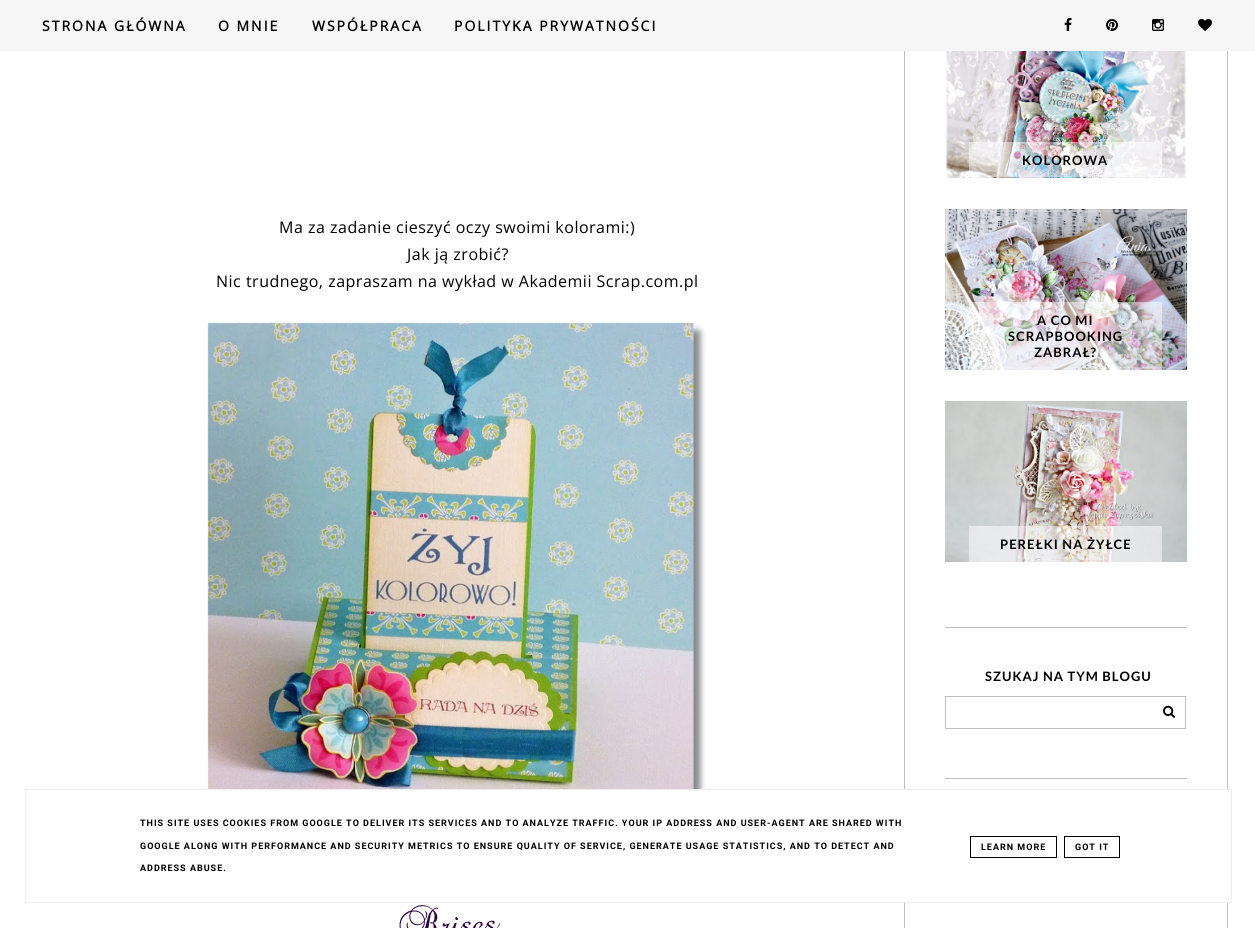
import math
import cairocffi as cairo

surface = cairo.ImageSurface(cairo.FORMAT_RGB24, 1255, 928)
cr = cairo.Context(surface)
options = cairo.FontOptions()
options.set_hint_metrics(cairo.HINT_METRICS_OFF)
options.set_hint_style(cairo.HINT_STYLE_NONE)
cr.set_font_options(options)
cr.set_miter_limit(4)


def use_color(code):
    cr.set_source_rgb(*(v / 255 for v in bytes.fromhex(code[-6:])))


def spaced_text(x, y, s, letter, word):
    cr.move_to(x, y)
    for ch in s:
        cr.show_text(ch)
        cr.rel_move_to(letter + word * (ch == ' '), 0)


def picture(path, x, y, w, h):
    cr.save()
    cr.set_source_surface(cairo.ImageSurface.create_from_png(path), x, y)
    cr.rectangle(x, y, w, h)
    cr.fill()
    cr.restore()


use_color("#ffffff")
cr.paint()
cr.rectangle(904.5, -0.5, 323, 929)
use_color("#bfbfbf")
cr.set_line_width(1)
cr.stroke()
use_color("#f6f6f6")
cr.rectangle(0, 0, 1255, 51)
cr.fill()
cr.select_font_face("Open Sans", cairo.FONT_SLANT_NORMAL, cairo.FONT_WEIGHT_BOLD)
cr.set_font_size(14)
use_color("#000000")
spaced_text(42, 31, "STRONA GŁÓWNA", 2, 0)
spaced_text(218, 31, "O MNIE", 2, 0)
spaced_text(312, 31, "WSPÓŁPRACA", 2, 0)
spaced_text(454, 31, "POLITYKA PRYWATNOŚCI", 2, 0)
picture("img1.png", 1064, 18, 8, 13)
picture("img2.png", 1106, 19, 12, 12)
picture("img3.png", 1152, 19, 12, 12)
picture("img4.png", 1198, 19, 14, 12)
cr.select_font_face("Open Sans")
cr.set_font_size(16)
spaced_text(279, 233, "Ma za zadanie cieszyć oczy swoimi kolorami:)", 0.5, 0)
spaced_text(407, 260, "Jak ją zrobić?", 0.5, 0)
spaced_text(216, 287, "Nic trudnego, zapraszam na wykład w Akademii Scrap.com.pl", 0.5, 0)
picture("img5.png", 207, 322, 499, 467)
picture("img6.png", 399, 905, 102, 23)
use_color("#bfbfbf")
cr.rectangle(945, 627, 242, 1)
cr.fill()
picture("img7.png", 945, 51, 241, 127)
cr.set_source_rgba(1, 1, 1, 0.5)
cr.rectangle(969, 142, 193, 35)
cr.fill()
cr.select_font_face("Lato", cairo.FONT_SLANT_NORMAL, cairo.FONT_WEIGHT_BOLD)
cr.set_font_size(13)
use_color("#000000")
spaced_text(1022, 165, "KOLOROWA", 1, 0)
picture("img8.png", 945, 209, 242, 161)
cr.set_source_rgba(1, 1, 1, 0.5)
cr.rectangle(969, 302, 193, 68)
cr.fill()
use_color("#000000")
spaced_text(1037, 325, "A CO MI", 1, 0)
spaced_text(1008, 341, "SCRAPBOOKING", 1, 0)
spaced_text(1034, 357, "ZABRAŁ?", 1, 0)
picture("img9.png", 945, 401, 242, 161)
cr.set_source_rgba(1, 1, 1, 0.5)
cr.rectangle(969, 526, 193, 36)
cr.fill()
use_color("#000000")
spaced_text(1000, 549, "PEREŁKI NA ŻYŁCE", 1, 0)
use_color("#bfbfbf")
cr.rectangle(945, 778, 242, 1)
cr.fill()
use_color("#000000")
spaced_text(985, 681, "SZUKAJ NA TYM BLOGU", 1, 0)
cr.rectangle(945.5, 696.5, 240, 32)
use_color("#bfbfbf")
cr.stroke()
picture("img10.png", 1163, 705, 12, 13)
use_color("#ffffff")
cr.rectangle(904, 790, 324, 112)
cr.fill()
cr.rectangle(25.5, 789.5, 1206, 113)
use_color("#eeeeee")
cr.stroke()
cr.select_font_face("Roboto", cairo.FONT_SLANT_NORMAL, cairo.FONT_WEIGHT_BOLD)
cr.set_font_size(9)
use_color("#000000")
spaced_text(140, 826, "THIS SITE USES COOKIES FROM GOOGLE TO DELIVER ITS SERVICES AND TO ANALYZE TRAFFIC. YOUR IP ADDRESS AND USER-AGENT ARE SHARED WITH", 1, 0)
spaced_text(140, 849, "GOOGLE ALONG WITH PERFORMANCE AND SECURITY METRICS TO ENSURE QUALITY OF SERVICE, GENERATE USAGE STATISTICS, AND TO DETECT AND", 1, 0)
spaced_text(140, 871, "ADDRESS ABUSE.", 1, 0)
cr.rectangle(970.5, 836.5, 86, 21)
cr.stroke()
spaced_text(981, 850, "LEARN MORE", 1, 0)
cr.rectangle(1064.5, 836.5, 55, 21)
cr.stroke()
spaced_text(1075, 850, "GOT IT", 1, 0)
surface.write_to_png("result.png")
